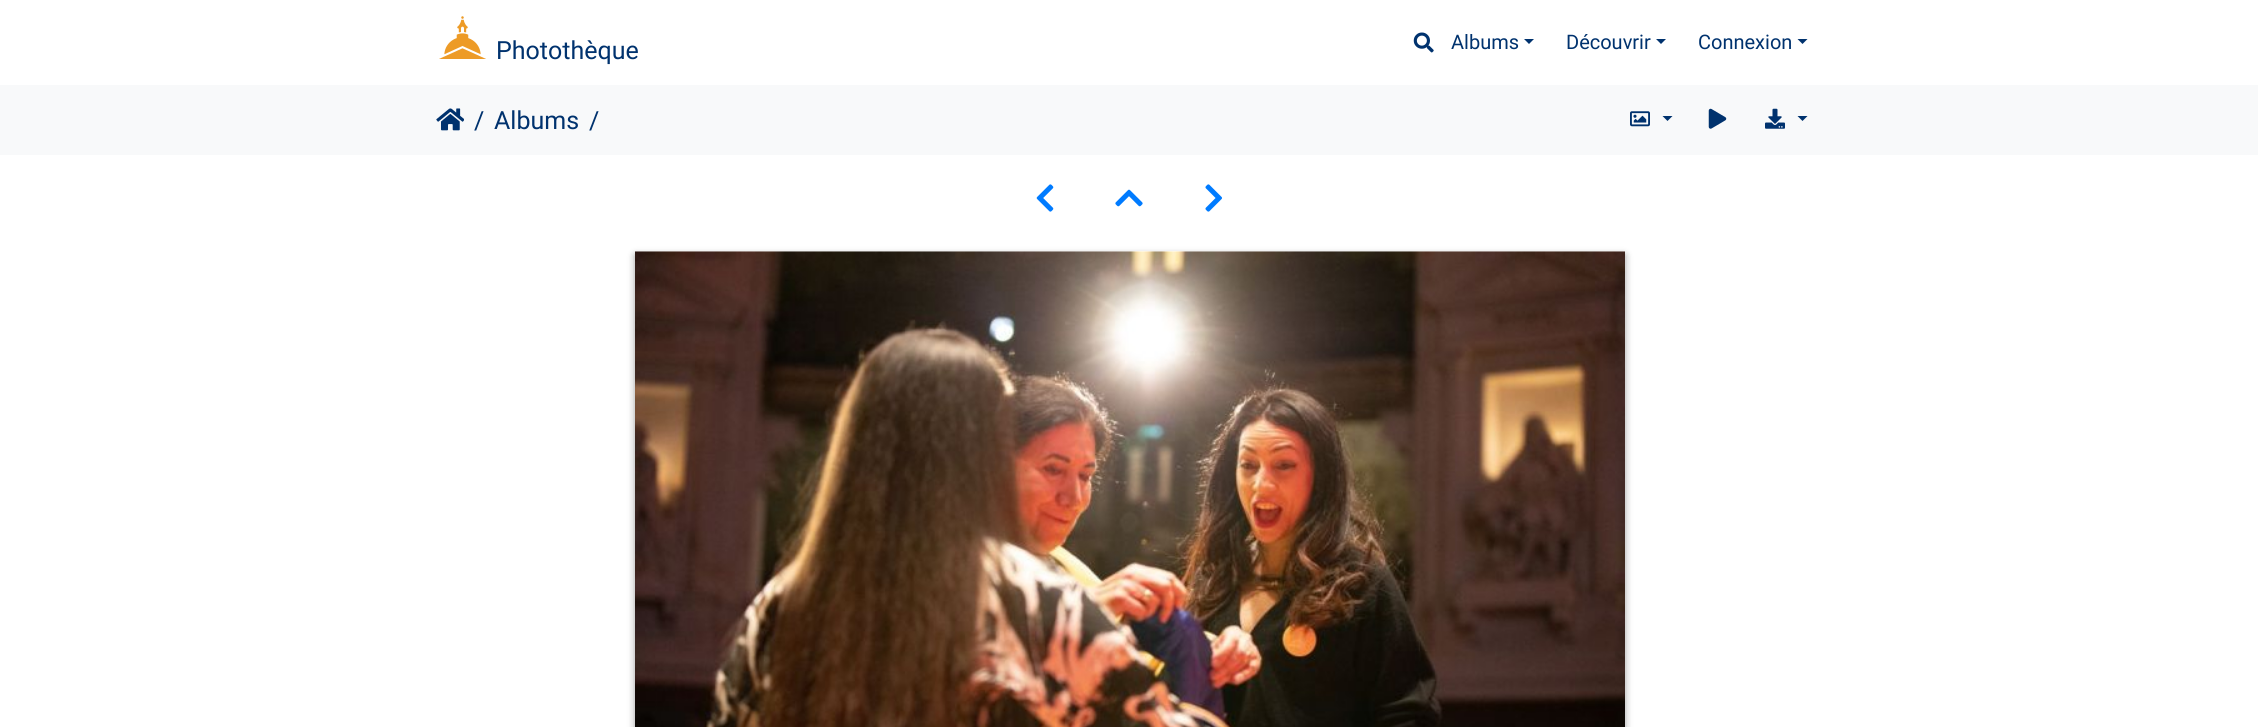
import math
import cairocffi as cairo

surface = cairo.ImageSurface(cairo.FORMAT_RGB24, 2258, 727)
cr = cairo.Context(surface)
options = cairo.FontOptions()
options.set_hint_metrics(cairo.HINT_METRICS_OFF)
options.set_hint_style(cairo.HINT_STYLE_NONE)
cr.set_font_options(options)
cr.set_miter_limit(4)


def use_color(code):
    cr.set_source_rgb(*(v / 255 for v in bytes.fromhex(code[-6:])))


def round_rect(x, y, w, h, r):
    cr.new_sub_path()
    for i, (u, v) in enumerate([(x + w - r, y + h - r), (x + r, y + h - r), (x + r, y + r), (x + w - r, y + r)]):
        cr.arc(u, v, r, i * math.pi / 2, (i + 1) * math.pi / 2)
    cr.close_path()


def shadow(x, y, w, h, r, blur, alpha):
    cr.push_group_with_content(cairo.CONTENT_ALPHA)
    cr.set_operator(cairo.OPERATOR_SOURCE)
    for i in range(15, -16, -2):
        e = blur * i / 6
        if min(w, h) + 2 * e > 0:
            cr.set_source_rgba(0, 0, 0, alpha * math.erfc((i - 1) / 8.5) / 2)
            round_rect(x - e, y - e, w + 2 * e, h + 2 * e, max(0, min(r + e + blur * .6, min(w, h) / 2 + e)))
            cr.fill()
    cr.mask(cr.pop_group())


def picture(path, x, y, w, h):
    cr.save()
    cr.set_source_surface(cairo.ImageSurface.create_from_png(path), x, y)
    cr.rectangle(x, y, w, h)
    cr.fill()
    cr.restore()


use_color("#ffffff")
cr.paint()
picture("img1.png", 439, 16, 47, 43)
cr.select_font_face("Roboto")
cr.set_font_size(25)
use_color("#00326e")
cr.move_to(496, 59)
cr.show_text("Photothèque")
picture("img2.png", 1413, 32, 21, 21)
cr.set_font_size(20)
cr.move_to(1451, 49)
cr.show_text("Albums")
cr.new_path()
cr.move_to(1524, 39)
cr.line_to(1534, 39)
cr.line_to(1529, 44)
cr.close_path()
cr.fill()
cr.move_to(1566, 49)
cr.show_text("Découvrir")
cr.new_path()
cr.move_to(1656, 39)
cr.line_to(1666, 39)
cr.line_to(1661, 44)
cr.close_path()
cr.fill()
cr.move_to(1698, 49)
cr.show_text("Connexion")
cr.new_path()
cr.move_to(1797.5, 39)
cr.line_to(1807.5, 39)
cr.line_to(1802.5, 44)
cr.close_path()
cr.fill()
use_color("#f8f9fa")
cr.rectangle(0, 85, 2258, 70)
cr.fill()
picture("img3.png", 436, 108, 28, 23)
cr.set_font_size(25)
use_color("#00326e")
cr.move_to(474, 129)
cr.show_text("/")
cr.move_to(494, 129)
cr.show_text("Albums")
cr.move_to(589, 129)
cr.show_text("/")
picture("img4.png", 1630, 111, 20, 16)
cr.new_path()
cr.move_to(1662.5, 116)
cr.line_to(1672.5, 116)
cr.line_to(1667.5, 121)
cr.close_path()
cr.fill()
picture("img5.png", 1708, 108, 19, 21)
picture("img6.png", 1765, 108, 20, 21)
cr.new_path()
cr.move_to(1797.5, 116)
cr.line_to(1807.5, 116)
cr.line_to(1802.5, 121)
cr.close_path()
cr.fill()
picture("img7.png", 1036, 184, 18, 28)
picture("img8.png", 1115, 189, 28, 18)
picture("img9.png", 1205, 184, 17, 28)
cr.save()
cr.set_fill_rule(cairo.FILL_RULE_EVEN_ODD)
cr.new_path()
cr.move_to(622, 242)
cr.line_to(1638, 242)
cr.line_to(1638, 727)
cr.line_to(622, 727)
cr.close_path()
cr.move_to(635, 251)
cr.line_to(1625, 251)
cr.line_to(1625, 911)
cr.line_to(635, 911)
cr.close_path()
cr.clip()
use_color("#000000")
shadow(635, 255, 990, 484, 0, 4, 0.23)
shadow(635, 255, 990, 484, 0, 4, 0.16)
cr.restore()
picture("img10.png", 635, 251, 990, 476)
surface.write_to_png("result.png")
